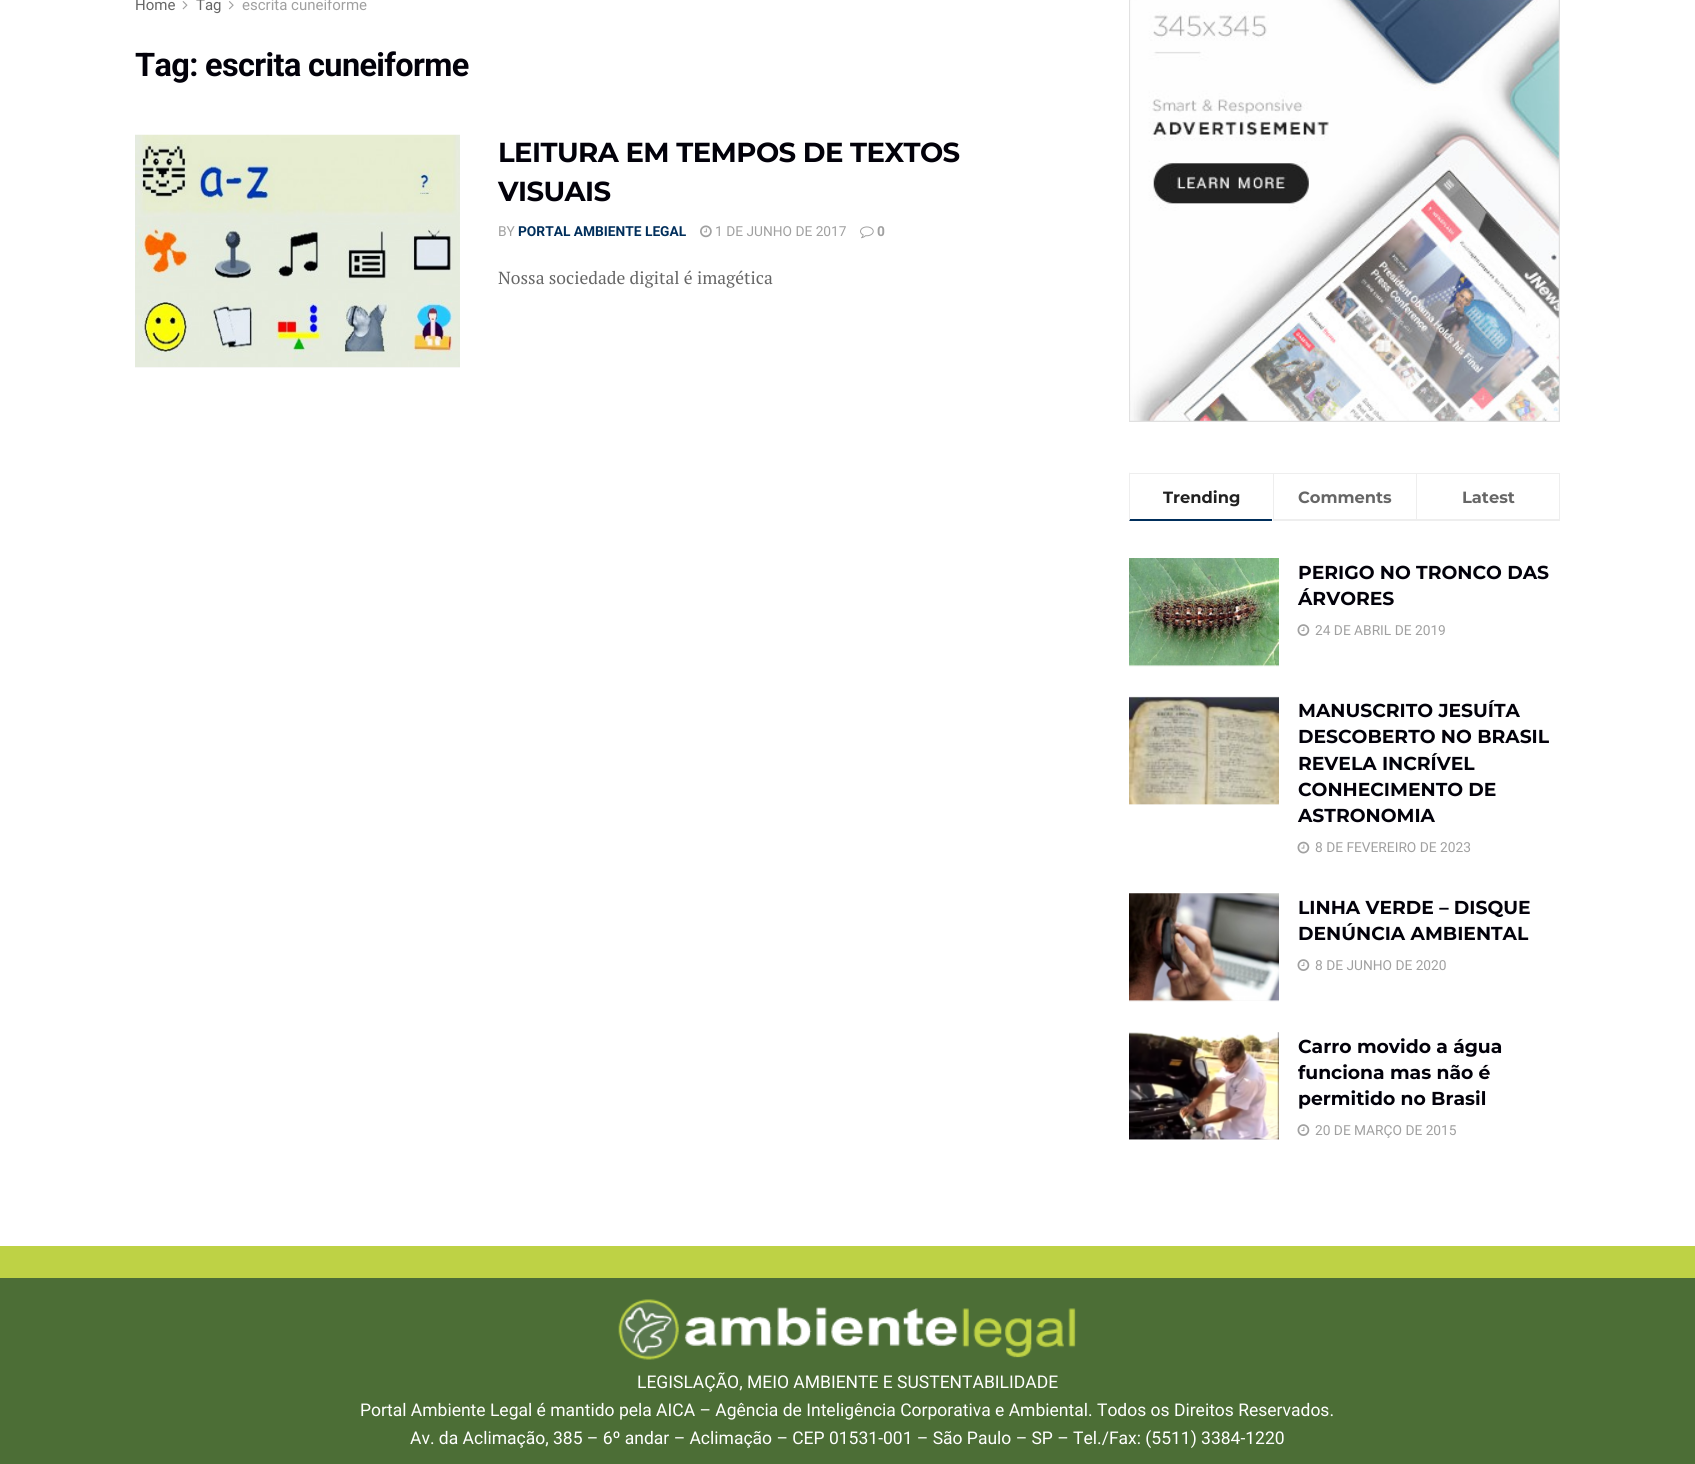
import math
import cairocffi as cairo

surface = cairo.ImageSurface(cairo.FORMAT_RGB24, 1695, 1464)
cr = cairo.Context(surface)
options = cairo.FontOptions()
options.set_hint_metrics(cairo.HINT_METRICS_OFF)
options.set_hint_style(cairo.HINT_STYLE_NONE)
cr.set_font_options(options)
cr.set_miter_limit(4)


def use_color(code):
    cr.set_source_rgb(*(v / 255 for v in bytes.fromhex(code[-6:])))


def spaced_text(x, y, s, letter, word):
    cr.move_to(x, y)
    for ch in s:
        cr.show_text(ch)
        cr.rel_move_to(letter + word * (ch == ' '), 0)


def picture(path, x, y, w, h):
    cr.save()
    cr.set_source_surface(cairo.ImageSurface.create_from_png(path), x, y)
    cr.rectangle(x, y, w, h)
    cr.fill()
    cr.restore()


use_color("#ffffff")
cr.paint()
cr.select_font_face("Roboto")
cr.set_font_size(15)
use_color("#666666")
cr.move_to(135, 10)
cr.show_text("Home")
picture("img1.png", 182, 1, 6, 9)
cr.move_to(196, 10)
cr.show_text("Tag")
picture("img2.png", 228, 1, 6, 9)
use_color("#a0a0a0")
cr.move_to(242, 10)
cr.show_text("escrita cuneiforme")
cr.select_font_face("Roboto", cairo.FONT_SLANT_NORMAL, cairo.FONT_WEIGHT_BOLD)
cr.set_font_size(32.5)
use_color("#02010a")
spaced_text(135, 76, "Tag: escrita cuneiforme", -0.65, 0)
use_color("#f7f7f7")
cr.rectangle(135, 367, 325, 1)
cr.fill()
picture("img3.png", 135, 134, 325, 233)
cr.select_font_face("Montserrat", cairo.FONT_SLANT_NORMAL, cairo.FONT_WEIGHT_BOLD)
cr.set_font_size(27.5)
use_color("#02010a")
spaced_text(498, 162, "LEITURA EM TEMPOS DE TEXTOS", -0.55, 0)
spaced_text(498, 201, "VISUAIS", -0.55, 0)
cr.select_font_face("Roboto")
cr.set_font_size(13.75)
use_color("#a0a0a0")
cr.move_to(498, 236)
cr.show_text("BY")
cr.select_font_face("Roboto", cairo.FONT_SLANT_NORMAL, cairo.FONT_WEIGHT_BOLD)
use_color("#002e5b")
cr.move_to(518, 236)
cr.show_text("PORTAL AMBIENTE LEGAL")
picture("img4.png", 700, 225, 12, 13)
cr.select_font_face("Roboto")
use_color("#a0a0a0")
cr.move_to(715, 236)
cr.show_text("1 DE JUNHO DE 2017")
picture("img5.png", 860, 226, 14, 13)
cr.select_font_face("Roboto", cairo.FONT_SLANT_NORMAL, cairo.FONT_WEIGHT_BOLD)
cr.move_to(877, 236)
cr.show_text("0")
cr.select_font_face("PT Serif")
cr.set_font_size(17.5)
use_color("#666666")
cr.move_to(498, 284)
cr.show_text("Nossa sociedade digital é imagética")
picture("img6.png", 1129, 0, 431, 422)
use_color("#eeeeee")
cr.rectangle(1129, 473, 431, 1)
cr.fill()
use_color("#002e5b")
cr.new_path()
cr.move_to(1272, 521)
cr.line_to(1129, 521)
cr.line_to(1130, 519)
cr.line_to(1272, 519)
cr.close_path()
cr.fill()
use_color("#eeeeee")
cr.new_path()
cr.move_to(1129, 521)
cr.line_to(1129, 472)
cr.line_to(1130, 474)
cr.line_to(1130, 519)
cr.close_path()
cr.fill()
cr.select_font_face("Montserrat", cairo.FONT_SLANT_NORMAL, cairo.FONT_WEIGHT_BOLD)
cr.set_font_size(16.25)
use_color("#212121")
cr.move_to(1163, 503)
cr.show_text("Trending")
use_color("#eeeeee")
cr.rectangle(1273, 519, 143, 2)
cr.fill()
cr.rectangle(1273, 473, 1, 48)
cr.fill()
use_color("#666666")
cr.move_to(1298, 503)
cr.show_text("Comments")
use_color("#eeeeee")
cr.rectangle(1559, 473, 1, 48)
cr.fill()
cr.rectangle(1416, 519, 144, 2)
cr.fill()
cr.rectangle(1416, 473, 1, 48)
cr.fill()
use_color("#666666")
cr.move_to(1462, 503)
cr.show_text("Latest")
use_color("#f7f7f7")
cr.rectangle(1129, 665, 150, 1)
cr.fill()
picture("img7.png", 1129, 558, 150, 109)
cr.set_font_size(18.75)
use_color("#02010a")
cr.move_to(1298, 579)
cr.show_text("PERIGO NO TRONCO DAS")
cr.move_to(1298, 605)
cr.show_text("ÁRVORES")
picture("img8.png", 1297, 624, 13, 12)
cr.select_font_face("Roboto")
cr.set_font_size(13.75)
use_color("#a0a0a0")
cr.move_to(1315, 635)
cr.show_text("24 DE ABRIL DE 2019")
use_color("#f7f7f7")
cr.rectangle(1129, 804, 150, 1)
cr.fill()
picture("img9.png", 1129, 696, 150, 109)
cr.select_font_face("Montserrat", cairo.FONT_SLANT_NORMAL, cairo.FONT_WEIGHT_BOLD)
cr.set_font_size(18.75)
use_color("#02010a")
cr.move_to(1298, 717)
cr.show_text("MANUSCRITO JESUÍTA")
cr.move_to(1298, 743)
cr.show_text("DESCOBERTO NO BRASIL")
cr.move_to(1298, 770)
cr.show_text("REVELA INCRÍVEL")
cr.move_to(1298, 796)
cr.show_text("CONHECIMENTO DE")
cr.move_to(1298, 822)
cr.show_text("ASTRONOMIA")
picture("img10.png", 1297, 841, 13, 13)
cr.select_font_face("Roboto")
cr.set_font_size(13.75)
use_color("#a0a0a0")
cr.move_to(1315, 852)
cr.show_text("8 DE FEVEREIRO DE 2023")
use_color("#f7f7f7")
cr.rectangle(1129, 1000, 150, 1)
cr.fill()
picture("img11.png", 1129, 893, 150, 109)
cr.select_font_face("Montserrat", cairo.FONT_SLANT_NORMAL, cairo.FONT_WEIGHT_BOLD)
cr.set_font_size(18.75)
use_color("#02010a")
cr.move_to(1298, 914)
cr.show_text("LINHA VERDE – DISQUE")
cr.move_to(1298, 940)
cr.show_text("DENÚNCIA AMBIENTAL")
picture("img8.png", 1297, 959, 13, 12)
cr.select_font_face("Roboto")
cr.set_font_size(13.75)
use_color("#a0a0a0")
cr.move_to(1315, 970)
cr.show_text("8 DE JUNHO DE 2020")
use_color("#f7f7f7")
cr.rectangle(1129, 1139, 150, 1)
cr.fill()
picture("img12.png", 1129, 1032, 150, 108)
cr.select_font_face("Montserrat", cairo.FONT_SLANT_NORMAL, cairo.FONT_WEIGHT_BOLD)
cr.set_font_size(18.75)
use_color("#02010a")
cr.move_to(1298, 1053)
cr.show_text("Carro movido a água")
cr.move_to(1298, 1079)
cr.show_text("funciona mas não é")
cr.move_to(1298, 1105)
cr.show_text("permitido no Brasil")
picture("img8.png", 1297, 1124, 13, 12)
cr.select_font_face("Roboto")
cr.set_font_size(13.75)
use_color("#a0a0a0")
cr.move_to(1315, 1135)
cr.show_text("20 DE MARÇO DE 2015")
use_color("#bed245")
cr.rectangle(0, 1246, 1695, 32)
cr.fill()
use_color("#4c6e36")
cr.rectangle(0, 1278, 1695, 186)
cr.fill()
picture("img13.png", 618, 1299, 458, 61)
cr.set_font_size(17.5)
use_color("#ffffff")
cr.move_to(637, 1388)
cr.show_text("LEGISLAÇÃO, MEIO AMBIENTE E SUSTENTABILIDADE")
cr.move_to(360, 1416)
cr.show_text("Portal Ambiente Legal é mantido pela AICA – Agência de Inteligência Corporativa e Ambiental. Todos os Direitos Reservados.")
cr.move_to(410, 1444)
cr.show_text("Av. da Aclimação, 385 – 6º andar – Aclimação – CEP 01531-001 – São Paulo – SP – Tel./Fax: (5511) 3384-1220")
surface.write_to_png("result.png")
